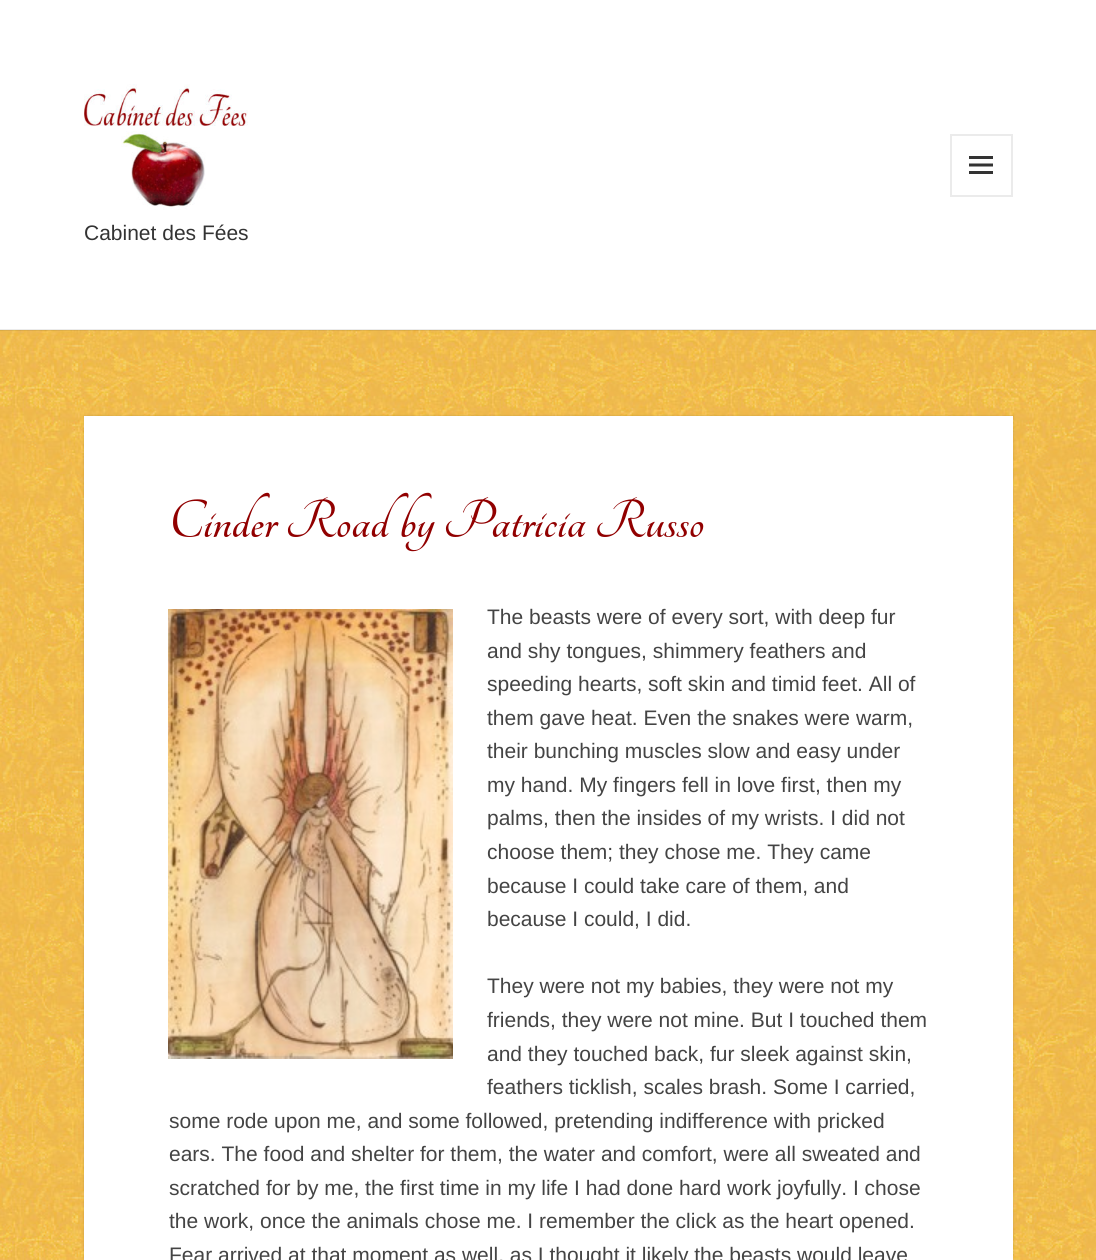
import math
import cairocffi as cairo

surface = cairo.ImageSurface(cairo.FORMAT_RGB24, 1096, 1260)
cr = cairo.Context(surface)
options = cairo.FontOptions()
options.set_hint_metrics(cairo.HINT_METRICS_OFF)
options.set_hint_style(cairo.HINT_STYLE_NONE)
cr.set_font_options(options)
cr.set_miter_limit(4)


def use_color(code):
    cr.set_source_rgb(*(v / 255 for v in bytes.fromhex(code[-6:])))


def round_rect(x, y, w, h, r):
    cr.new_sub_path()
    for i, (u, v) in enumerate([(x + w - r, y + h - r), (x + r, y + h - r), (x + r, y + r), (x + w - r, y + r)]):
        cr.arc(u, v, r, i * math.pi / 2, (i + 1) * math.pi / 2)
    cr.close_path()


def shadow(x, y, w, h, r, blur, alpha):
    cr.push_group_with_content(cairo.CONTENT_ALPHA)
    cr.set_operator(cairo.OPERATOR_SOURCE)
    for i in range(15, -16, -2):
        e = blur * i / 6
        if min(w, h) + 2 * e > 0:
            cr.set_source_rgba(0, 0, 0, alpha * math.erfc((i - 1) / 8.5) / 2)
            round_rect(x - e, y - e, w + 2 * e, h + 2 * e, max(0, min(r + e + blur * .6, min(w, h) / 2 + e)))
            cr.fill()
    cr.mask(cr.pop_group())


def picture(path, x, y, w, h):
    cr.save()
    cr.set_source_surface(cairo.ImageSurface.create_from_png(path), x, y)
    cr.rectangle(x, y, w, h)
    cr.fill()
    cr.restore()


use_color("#ffffff")
cr.paint()
picture("img1.png", 0, 330, 1096, 930)
cr.set_source_rgba(0.2, 0.2, 0.2, 0.1)
cr.rectangle(0, 329, 1096, 2)
cr.fill()
picture("img2.png", 84, 84, 164, 126)
cr.rectangle(951, 135, 61, 61)
use_color("#ebebeb")
cr.stroke()
picture("img3.png", 969, 156, 24, 18)
cr.select_font_face("Liberation Sans")
cr.set_font_size(21)
use_color("#333333")
cr.move_to(84, 240)
cr.show_text("Cabinet des Fées")
use_color("#000000")
shadow(84, 416, 929, 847, 0, 1, 0.15)
use_color("#ffffff")
cr.rectangle(84, 416, 929, 844)
cr.fill()
cr.select_font_face("Tangerine", cairo.FONT_SLANT_NORMAL, cairo.FONT_WEIGHT_BOLD)
cr.set_font_size(58.5)
use_color("#910000")
cr.move_to(169, 537)
cr.show_text("Cinder Road by Patricia Russo")
picture("img4.png", 168, 609, 285, 450)
cr.select_font_face("Liberation Sans")
cr.set_font_size(21)
use_color("#444444")
cr.move_to(487, 624)
cr.show_text("The beasts were of every sort, with deep fur")
cr.move_to(487, 658)
cr.show_text("and shy tongues, shimmery feathers and")
cr.move_to(487, 691)
cr.show_text("speeding hearts, soft skin and timid feet. All of")
cr.move_to(487, 725)
cr.show_text("them gave heat. Even the snakes were warm,")
cr.move_to(487, 758)
cr.show_text("their bunching muscles slow and easy under")
cr.move_to(487, 792)
cr.show_text("my hand. My fingers fell in love first, then my")
cr.move_to(487, 825)
cr.show_text("palms, then the insides of my wrists. I did not")
cr.move_to(487, 859)
cr.show_text("choose them; they chose me. They came")
cr.move_to(487, 893)
cr.show_text("because I could take care of them, and")
cr.move_to(487, 926)
cr.show_text("because I could, I did.")
cr.move_to(487, 993)
cr.show_text("They were not my babies, they were not my")
cr.move_to(487, 1027)
cr.show_text("friends, they were not mine. But I touched them")
cr.move_to(487, 1061)
cr.show_text("and they touched back, fur sleek against skin,")
cr.move_to(487, 1094)
cr.show_text("feathers ticklish, scales brash. Some I carried,")
cr.move_to(169, 1128)
cr.show_text("some rode upon me, and some followed, pretending indifference with pricked")
cr.move_to(169, 1161)
cr.show_text("ears. The food and shelter for them, the water and comfort, were all sweated and")
cr.move_to(169, 1195)
cr.show_text("scratched for by me, the first time in my life I had done hard work joyfully. I chose")
cr.move_to(169, 1228)
cr.show_text("the work, once the animals chose me. I remember the click as the heart opened.")
cr.move_to(169, 1262)
cr.show_text("Fear arrived at that moment as well, as I thought it likely the beasts would leave")
surface.write_to_png("result.png")
